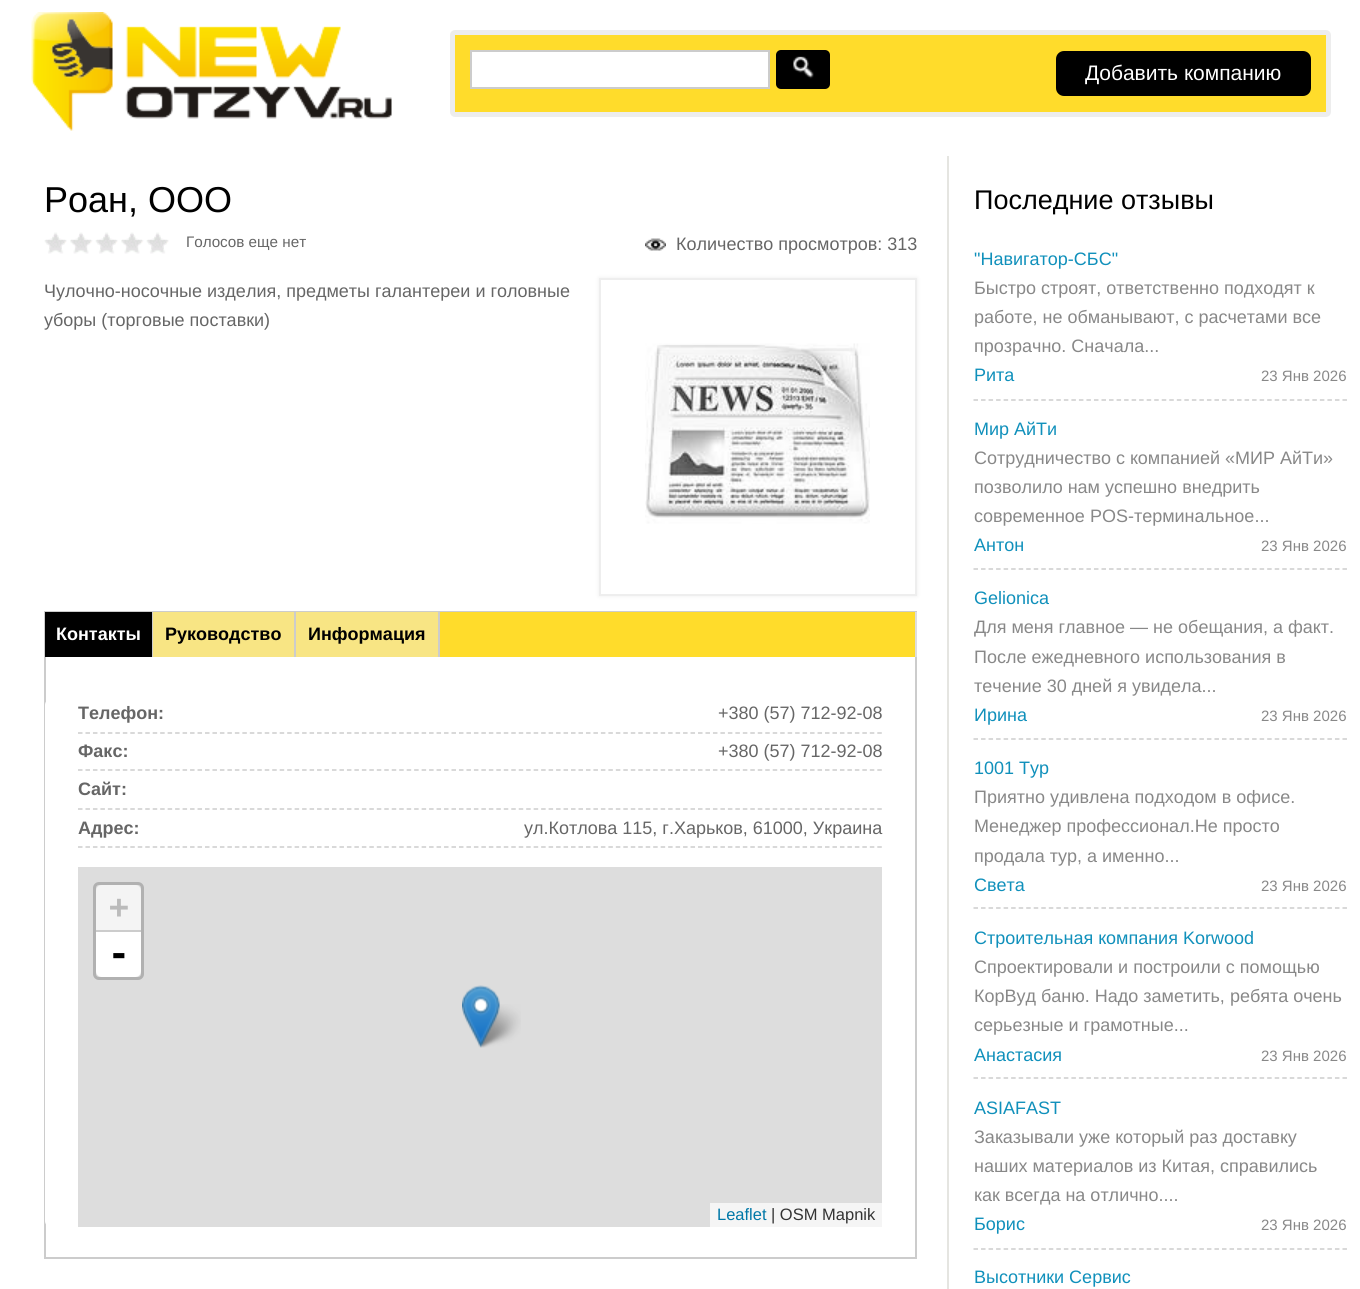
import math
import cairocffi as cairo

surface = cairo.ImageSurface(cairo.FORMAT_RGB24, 1360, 1289)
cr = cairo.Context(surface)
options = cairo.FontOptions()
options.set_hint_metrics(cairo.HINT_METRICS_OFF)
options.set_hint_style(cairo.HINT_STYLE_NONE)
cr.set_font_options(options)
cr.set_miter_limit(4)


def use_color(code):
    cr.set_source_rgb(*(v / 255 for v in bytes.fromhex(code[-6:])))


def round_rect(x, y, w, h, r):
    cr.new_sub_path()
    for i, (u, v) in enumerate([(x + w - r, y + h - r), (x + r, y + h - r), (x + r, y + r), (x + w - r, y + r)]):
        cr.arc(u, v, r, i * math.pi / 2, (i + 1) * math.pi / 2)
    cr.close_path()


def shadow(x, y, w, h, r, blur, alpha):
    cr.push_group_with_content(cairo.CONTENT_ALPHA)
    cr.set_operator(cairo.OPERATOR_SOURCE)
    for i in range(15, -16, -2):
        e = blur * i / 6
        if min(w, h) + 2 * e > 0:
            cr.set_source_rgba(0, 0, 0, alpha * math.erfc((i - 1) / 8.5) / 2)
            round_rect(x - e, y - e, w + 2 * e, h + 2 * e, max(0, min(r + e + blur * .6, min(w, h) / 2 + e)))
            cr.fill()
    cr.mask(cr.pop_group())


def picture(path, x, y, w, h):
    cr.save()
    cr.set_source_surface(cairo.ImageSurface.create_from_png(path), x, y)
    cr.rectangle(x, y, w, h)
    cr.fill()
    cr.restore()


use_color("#ffffff")
cr.paint()
picture("img1.png", 31, 12, 361, 119)
use_color("#ffdc2b")
round_rect(452.5, 32.5, 876, 82, 2.5)
cr.fill_preserve()
use_color("#ededed")
cr.set_line_width(5)
cr.stroke()
use_color("#ffffff")
cr.rectangle(471, 51, 298, 37)
cr.fill_preserve()
use_color("#cccccc")
cr.set_line_width(2)
cr.stroke()
use_color("#000000")
round_rect(776, 50, 54, 39, 5)
cr.fill()
picture("img2.png", 793, 56, 21, 23)
round_rect(1056, 51, 255, 45, 8)
cr.fill()
cr.select_font_face("Liberation Sans")
cr.set_font_size(21)
use_color("#ffffff")
cr.move_to(1085, 80)
cr.show_text("Добавить компанию")
use_color("#e5e5e1")
cr.rectangle(947, 156, 2, 1133)
cr.fill()
cr.set_font_size(36)
use_color("#000000")
cr.move_to(44, 212)
cr.show_text("Роан, ООО")
picture("img3.png", 44, 232, 23, 22)
picture("img4.png", 46, 235, 19, 14)
picture("img5.png", 70, 232, 23, 22)
picture("img6.png", 71, 234, 20, 7)
picture("img3.png", 95, 232, 23, 22)
picture("img4.png", 97, 235, 19, 14)
picture("img5.png", 121, 232, 23, 22)
picture("img6.png", 122, 234, 20, 7)
picture("img3.png", 146, 232, 23, 22)
picture("img4.png", 148, 235, 19, 14)
cr.set_font_size(15.25)
use_color("#666666")
cr.move_to(186, 247)
cr.show_text("Голосов еще нет")
picture("img7.png", 645, 238, 21, 13)
cr.set_font_size(18)
cr.move_to(676, 250)
cr.show_text("Количество просмотров: 313")
cr.move_to(44, 297)
cr.show_text("Чулочно-носочные изделия, предметы галантереи и головные")
cr.move_to(44, 326)
cr.show_text("уборы (торговые поставки)")
use_color("#eeeeee")
shadow(599, 278, 318, 318, 0, 2, 1)
use_color("#ffffff")
cr.rectangle(600, 279, 316, 316)
cr.fill_preserve()
use_color("#eeeeee")
cr.stroke()
picture("img8.png", 645, 343, 225, 181)
cr.rectangle(45, 612, 871, 646)
use_color("#cccccc")
cr.stroke()
use_color("#ffdc2b")
cr.rectangle(440, 612, 475, 45)
cr.fill()
use_color("#dedede")
cr.rectangle(915, 612, 2, 45)
cr.fill()
use_color("#000000")
cr.rectangle(45, 612, 107, 45)
cr.fill()
use_color("#cccccc")
cr.rectangle(152, 612, 1, 45)
cr.fill()
cr.select_font_face("Liberation Sans", cairo.FONT_SLANT_NORMAL, cairo.FONT_WEIGHT_BOLD)
use_color("#ffffff")
cr.move_to(56, 640)
cr.show_text("Контакты")
use_color("#f8e584")
cr.rectangle(153, 612, 141, 45)
cr.fill()
use_color("#cccccc")
cr.rectangle(294, 612, 2, 45)
cr.fill()
use_color("#000000")
cr.move_to(165, 640)
cr.show_text("Руководство")
use_color("#f8e584")
cr.rectangle(296, 612, 142, 45)
cr.fill()
use_color("#cccccc")
cr.rectangle(438, 612, 2, 45)
cr.fill()
use_color("#000000")
cr.move_to(308, 640)
cr.show_text("Информация")
use_color("#ffffff")
round_rect(45, 699, 870, 528, 6)
cr.fill()
cr.new_path()
cr.move_to(78, 733)
cr.line_to(882, 733)
use_color("#cccccc")
cr.set_line_width(1.5)
cr.set_dash([4.5, 2.97])
cr.stroke()
use_color("#666666")
cr.move_to(78, 719)
cr.show_text("Телефон:")
cr.select_font_face("Liberation Sans")
cr.move_to(718, 719)
cr.show_text("+380 (57) 712-92-08")
cr.new_path()
cr.move_to(78, 770)
cr.line_to(882, 770)
use_color("#cccccc")
cr.stroke()
cr.select_font_face("Liberation Sans", cairo.FONT_SLANT_NORMAL, cairo.FONT_WEIGHT_BOLD)
use_color("#666666")
cr.move_to(78, 757)
cr.show_text("Факс:")
cr.select_font_face("Liberation Sans")
cr.move_to(718, 757)
cr.show_text("+380 (57) 712-92-08")
cr.new_path()
cr.move_to(78, 809)
cr.line_to(882, 809)
use_color("#cccccc")
cr.stroke()
cr.select_font_face("Liberation Sans", cairo.FONT_SLANT_NORMAL, cairo.FONT_WEIGHT_BOLD)
use_color("#666666")
cr.move_to(78, 795)
cr.show_text("Сайт:")
cr.new_path()
cr.move_to(78, 847)
cr.line_to(882, 847)
use_color("#cccccc")
cr.stroke()
use_color("#666666")
cr.move_to(78, 834)
cr.show_text("Адрес:")
cr.select_font_face("Liberation Sans")
cr.move_to(524, 834)
cr.show_text("ул.Котлова 115, г.Харьков, 61000, Украина")
use_color("#dddddd")
cr.rectangle(78, 867, 804, 360)
cr.fill()
round_rect(94.5, 883.5, 48, 95, 4.5)
use_color("#b1b1b1")
cr.set_line_width(3)
cr.set_dash([])
cr.stroke()
use_color("#f4f4f4")
cr.new_path()
cr.move_to(102, 885)
cr.line_to(135, 885)
cr.curve_to(138.5, 885, 141, 887.5, 141, 891)
cr.line_to(141, 932)
cr.line_to(96, 932)
cr.line_to(96, 891)
cr.curve_to(96, 887.5, 98.5, 885, 102, 885)
cr.close_path()
cr.fill()
use_color("#cccccc")
cr.rectangle(96, 930, 45, 2)
cr.fill()
cr.select_font_face("DejaVu Sans Mono", cairo.FONT_SLANT_NORMAL, cairo.FONT_WEIGHT_BOLD)
cr.set_font_size(33)
use_color("#bbbbbb")
cr.move_to(109, 918)
cr.show_text("+")
use_color("#ffffff")
cr.new_path()
cr.move_to(96, 932)
cr.line_to(141, 932)
cr.line_to(141, 971)
cr.curve_to(141, 974.5, 138.5, 977, 135, 977)
cr.line_to(102, 977)
cr.curve_to(98.5, 977, 96, 974.5, 96, 971)
cr.close_path()
cr.fill()
cr.set_font_size(36)
use_color("#000000")
cr.move_to(108, 966)
cr.show_text("-")
use_color("#f5f5f5")
cr.rectangle(710, 1203, 172, 24)
cr.fill()
cr.select_font_face("Liberation Sans")
cr.set_font_size(16.5)
use_color("#0078a8")
cr.move_to(717, 1220)
cr.show_text("Leaflet")
use_color("#333333")
cr.move_to(771, 1220)
cr.show_text("| OSM Mapnik")
picture("img10.png", 475, 1004, 46, 44)
picture("img9.png", 462, 985, 38, 63)
cr.set_font_size(27)
use_color("#000000")
cr.move_to(974, 209)
cr.show_text("Последние отзывы")
cr.new_path()
cr.move_to(973.5, 400)
cr.line_to(1347, 400)
use_color("#cccccc")
cr.set_line_width(1.5)
cr.set_dash([4.5, 3.03])
cr.stroke()
cr.set_font_size(18)
use_color("#1090bb")
cr.move_to(974, 265)
cr.show_text("\"Навигатор-СБС\"")
use_color("#888888")
cr.move_to(974, 294)
cr.show_text("Быстро строят, ответственно подходят к")
cr.move_to(974, 323)
cr.show_text("работе, не обманывают, с расчетами все")
cr.move_to(974, 352)
cr.show_text("прозрачно. Сначала...")
use_color("#1090bb")
cr.move_to(974, 381)
cr.show_text("Рита")
cr.set_font_size(15)
use_color("#888888")
cr.move_to(1261, 381)
cr.show_text("23 Янв 2026")
cr.new_path()
cr.move_to(973.5, 569)
cr.line_to(1347, 569)
use_color("#cccccc")
cr.stroke()
cr.set_font_size(18)
use_color("#1090bb")
cr.move_to(974, 435)
cr.show_text("Мир АйТи")
use_color("#888888")
cr.move_to(974, 464)
cr.show_text("Сотрудничество с компанией «МИР АйТи»")
cr.move_to(974, 493)
cr.show_text("позволило нам успешно внедрить")
cr.move_to(974, 522)
cr.show_text("современное POS-терминальное...")
use_color("#1090bb")
cr.move_to(974, 551)
cr.show_text("Антон")
cr.set_font_size(15)
use_color("#888888")
cr.move_to(1261, 551)
cr.show_text("23 Янв 2026")
cr.new_path()
cr.move_to(973.5, 739)
cr.line_to(1347, 739)
use_color("#cccccc")
cr.stroke()
cr.set_font_size(18)
use_color("#1090bb")
cr.move_to(974, 604)
cr.show_text("Gelionica")
use_color("#888888")
cr.move_to(974, 633)
cr.show_text("Для меня главное — не обещания, а факт.")
cr.move_to(974, 663)
cr.show_text("После ежедневного использования в")
cr.move_to(974, 692)
cr.show_text("течение 30 дней я увидела...")
use_color("#1090bb")
cr.move_to(974, 721)
cr.show_text("Ирина")
cr.set_font_size(15)
use_color("#888888")
cr.move_to(1261, 721)
cr.show_text("23 Янв 2026")
cr.new_path()
cr.move_to(973.5, 908)
cr.line_to(1347, 908)
use_color("#cccccc")
cr.stroke()
cr.set_font_size(18)
use_color("#1090bb")
cr.move_to(974, 774)
cr.show_text("1001 Тур")
use_color("#888888")
cr.move_to(974, 803)
cr.show_text("Приятно удивлена подходом в офисе.")
cr.move_to(974, 832)
cr.show_text("Менеджер профессионал.Не просто")
cr.move_to(974, 862)
cr.show_text("продала тур, а именно...")
use_color("#1090bb")
cr.move_to(974, 891)
cr.show_text("Света")
cr.set_font_size(15)
use_color("#888888")
cr.move_to(1261, 891)
cr.show_text("23 Янв 2026")
cr.new_path()
cr.move_to(973.5, 1078)
cr.line_to(1347, 1078)
use_color("#cccccc")
cr.stroke()
cr.set_font_size(18)
use_color("#1090bb")
cr.move_to(974, 944)
cr.show_text("Строительная компания Korwood")
use_color("#888888")
cr.move_to(974, 973)
cr.show_text("Спроектировали и построили с помощью")
cr.move_to(974, 1002)
cr.show_text("КорВуд баню. Надо заметить, ребята очень")
cr.move_to(974, 1031)
cr.show_text("серьезные и грамотные...")
use_color("#1090bb")
cr.move_to(974, 1061)
cr.show_text("Анастасия")
cr.set_font_size(15)
use_color("#888888")
cr.move_to(1261, 1061)
cr.show_text("23 Янв 2026")
cr.new_path()
cr.move_to(973.5, 1249)
cr.line_to(1347, 1249)
use_color("#cccccc")
cr.stroke()
cr.set_font_size(18)
use_color("#1090bb")
cr.move_to(974, 1114)
cr.show_text("ASIAFAST")
use_color("#888888")
cr.move_to(974, 1143)
cr.show_text("Заказывали уже который раз доставку")
cr.move_to(974, 1172)
cr.show_text("наших материалов из Китая, справились")
cr.move_to(974, 1201)
cr.show_text("как всегда на отлично....")
use_color("#1090bb")
cr.move_to(974, 1230)
cr.show_text("Борис")
cr.set_font_size(15)
use_color("#888888")
cr.move_to(1261, 1230)
cr.show_text("23 Янв 2026")
cr.set_font_size(18)
use_color("#1090bb")
cr.move_to(974, 1283)
cr.show_text("Высотники Сервис")
surface.write_to_png("result.png")
